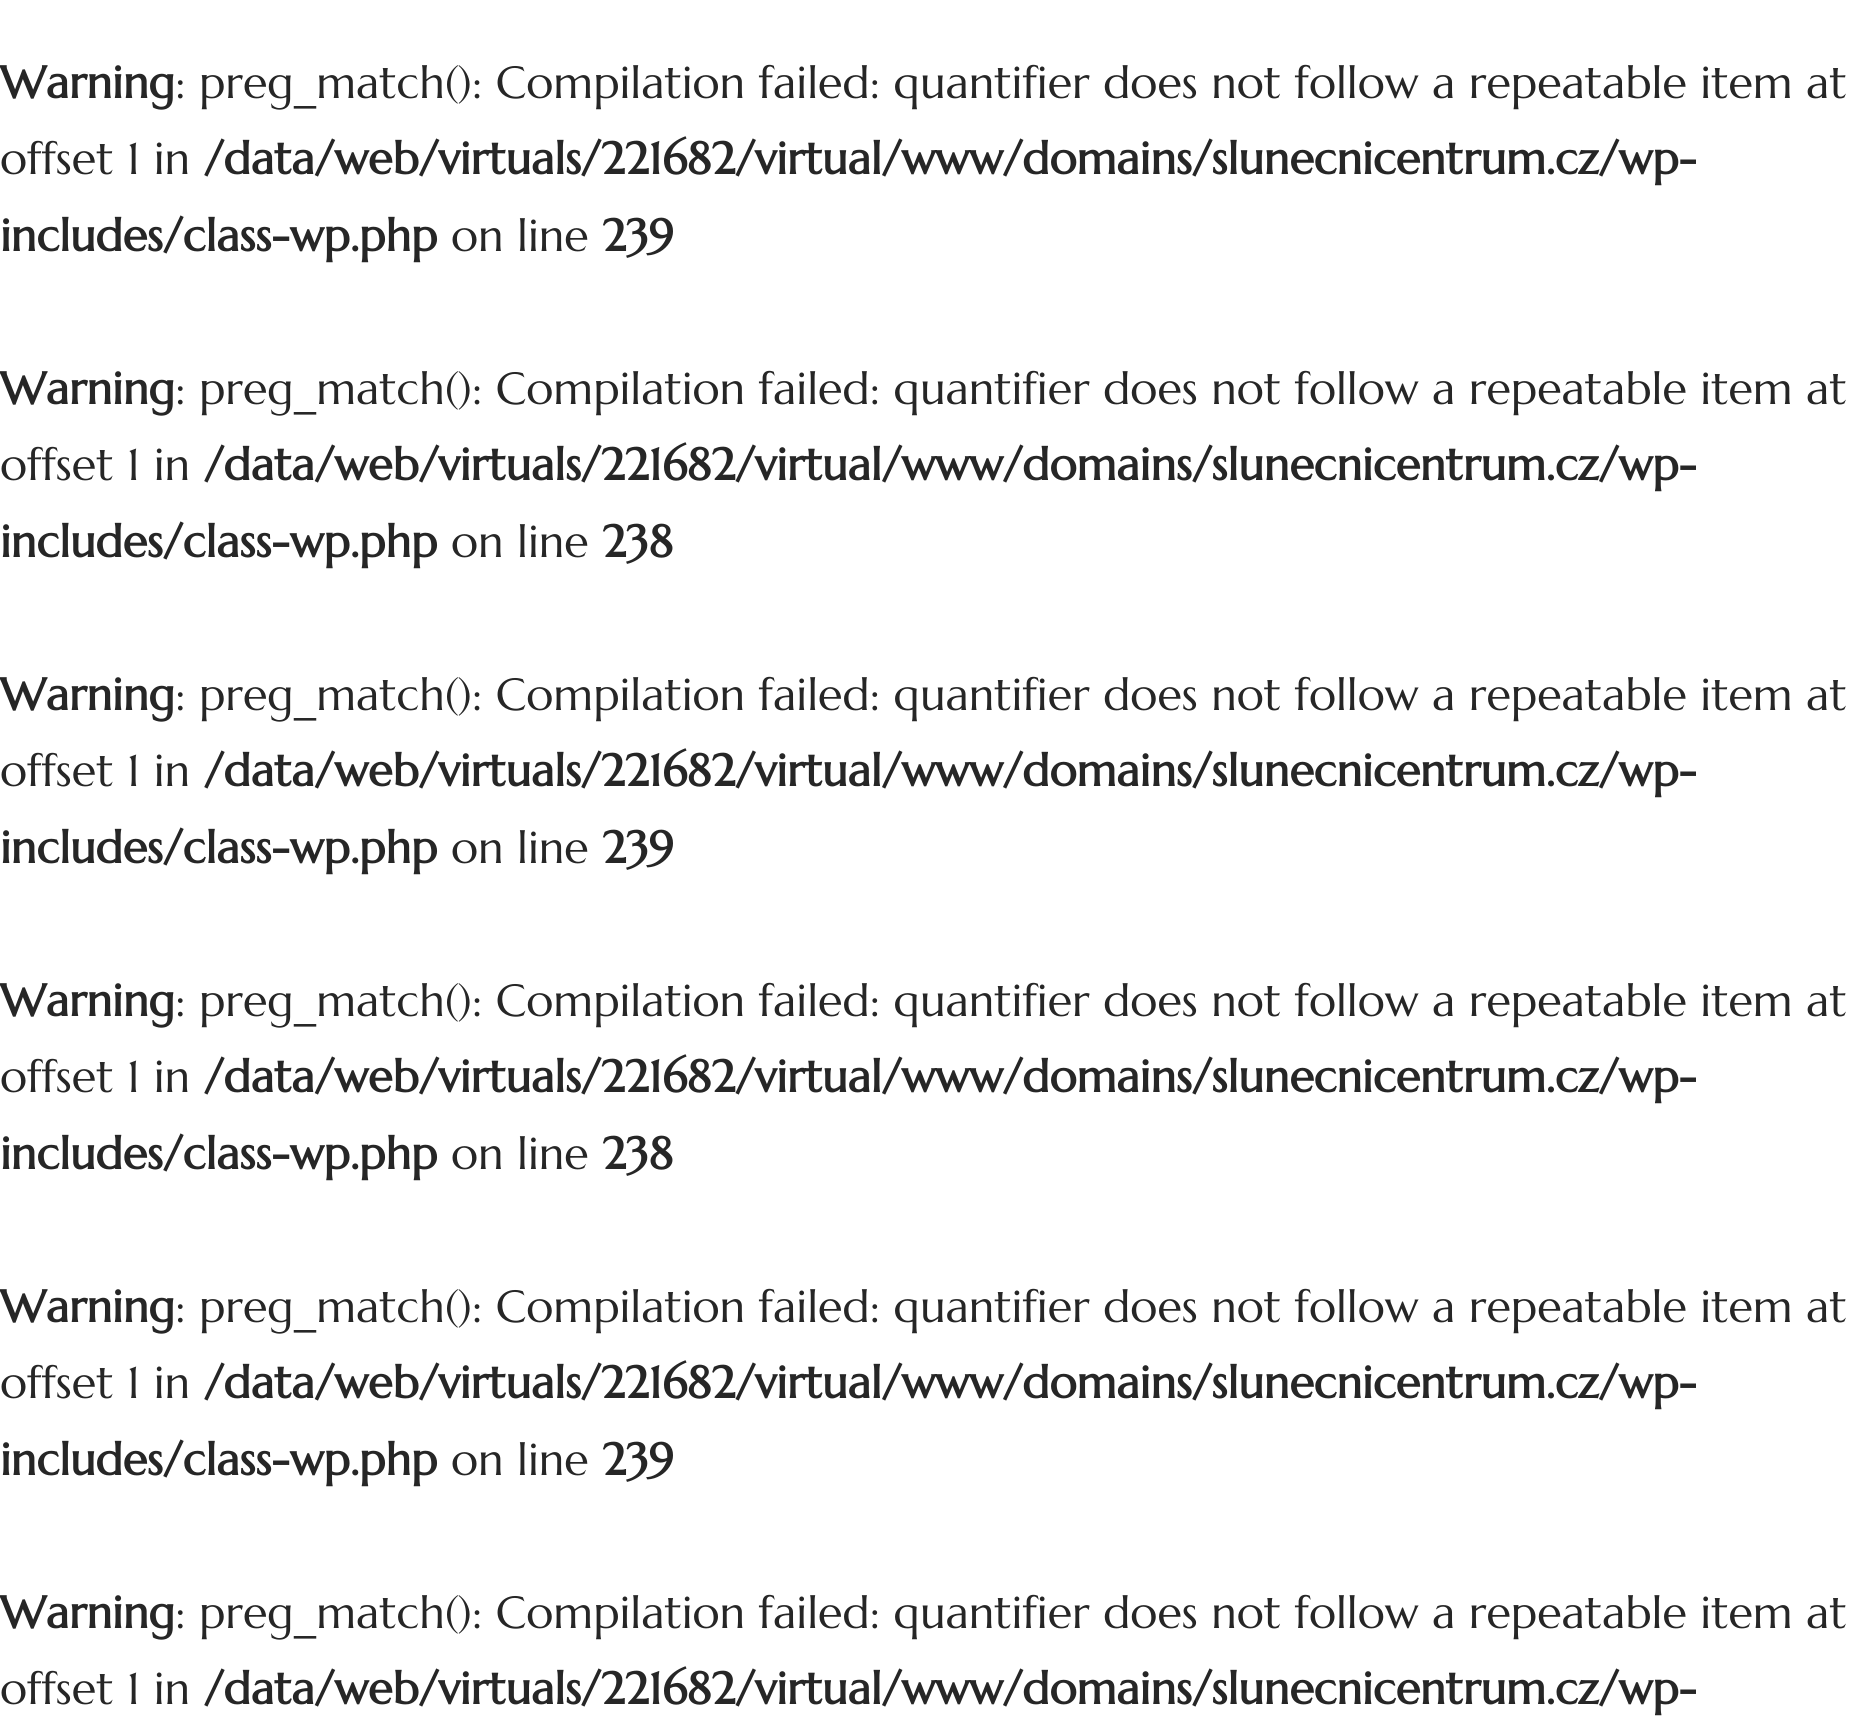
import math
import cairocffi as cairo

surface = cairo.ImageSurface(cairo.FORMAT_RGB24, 1864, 1720)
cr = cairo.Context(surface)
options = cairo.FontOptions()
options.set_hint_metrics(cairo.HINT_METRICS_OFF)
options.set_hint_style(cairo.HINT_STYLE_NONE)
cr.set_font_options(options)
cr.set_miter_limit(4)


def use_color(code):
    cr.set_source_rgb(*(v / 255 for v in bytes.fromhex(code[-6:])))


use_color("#ffffff")
cr.paint()
cr.select_font_face("Marcellus", cairo.FONT_SLANT_NORMAL, cairo.FONT_WEIGHT_BOLD)
cr.set_font_size(45)
use_color("#262626")
cr.move_to(0, 98)
cr.show_text("Warning")
cr.select_font_face("Marcellus")
cr.move_to(175, 98)
cr.show_text(": preg_match(): Compilation failed: quantifier does not follow a repeatable item at")
cr.move_to(0, 174)
cr.show_text("offset 1 in")
cr.select_font_face("Marcellus", cairo.FONT_SLANT_NORMAL, cairo.FONT_WEIGHT_BOLD)
cr.move_to(204, 174)
cr.show_text("/data/web/virtuals/221682/virtual/www/domains/slunecnicentrum.cz/wp-")
cr.move_to(0, 251)
cr.show_text("includes/class-wp.php")
cr.select_font_face("Marcellus")
cr.move_to(451, 251)
cr.show_text("on line")
cr.select_font_face("Marcellus", cairo.FONT_SLANT_NORMAL, cairo.FONT_WEIGHT_BOLD)
cr.move_to(602, 251)
cr.show_text("239")
cr.move_to(0, 404)
cr.show_text("Warning")
cr.select_font_face("Marcellus")
cr.move_to(175, 404)
cr.show_text(": preg_match(): Compilation failed: quantifier does not follow a repeatable item at")
cr.move_to(0, 480)
cr.show_text("offset 1 in")
cr.select_font_face("Marcellus", cairo.FONT_SLANT_NORMAL, cairo.FONT_WEIGHT_BOLD)
cr.move_to(204, 480)
cr.show_text("/data/web/virtuals/221682/virtual/www/domains/slunecnicentrum.cz/wp-")
cr.move_to(0, 557)
cr.show_text("includes/class-wp.php")
cr.select_font_face("Marcellus")
cr.move_to(451, 557)
cr.show_text("on line")
cr.select_font_face("Marcellus", cairo.FONT_SLANT_NORMAL, cairo.FONT_WEIGHT_BOLD)
cr.move_to(602, 557)
cr.show_text("238")
cr.move_to(0, 710)
cr.show_text("Warning")
cr.select_font_face("Marcellus")
cr.move_to(175, 710)
cr.show_text(": preg_match(): Compilation failed: quantifier does not follow a repeatable item at")
cr.move_to(0, 786)
cr.show_text("offset 1 in")
cr.select_font_face("Marcellus", cairo.FONT_SLANT_NORMAL, cairo.FONT_WEIGHT_BOLD)
cr.move_to(204, 786)
cr.show_text("/data/web/virtuals/221682/virtual/www/domains/slunecnicentrum.cz/wp-")
cr.move_to(0, 863)
cr.show_text("includes/class-wp.php")
cr.select_font_face("Marcellus")
cr.move_to(451, 863)
cr.show_text("on line")
cr.select_font_face("Marcellus", cairo.FONT_SLANT_NORMAL, cairo.FONT_WEIGHT_BOLD)
cr.move_to(602, 863)
cr.show_text("239")
cr.move_to(0, 1016)
cr.show_text("Warning")
cr.select_font_face("Marcellus")
cr.move_to(175, 1016)
cr.show_text(": preg_match(): Compilation failed: quantifier does not follow a repeatable item at")
cr.move_to(0, 1092)
cr.show_text("offset 1 in")
cr.select_font_face("Marcellus", cairo.FONT_SLANT_NORMAL, cairo.FONT_WEIGHT_BOLD)
cr.move_to(204, 1092)
cr.show_text("/data/web/virtuals/221682/virtual/www/domains/slunecnicentrum.cz/wp-")
cr.move_to(0, 1169)
cr.show_text("includes/class-wp.php")
cr.select_font_face("Marcellus")
cr.move_to(451, 1169)
cr.show_text("on line")
cr.select_font_face("Marcellus", cairo.FONT_SLANT_NORMAL, cairo.FONT_WEIGHT_BOLD)
cr.move_to(602, 1169)
cr.show_text("238")
cr.move_to(0, 1322)
cr.show_text("Warning")
cr.select_font_face("Marcellus")
cr.move_to(175, 1322)
cr.show_text(": preg_match(): Compilation failed: quantifier does not follow a repeatable item at")
cr.move_to(0, 1398)
cr.show_text("offset 1 in")
cr.select_font_face("Marcellus", cairo.FONT_SLANT_NORMAL, cairo.FONT_WEIGHT_BOLD)
cr.move_to(204, 1398)
cr.show_text("/data/web/virtuals/221682/virtual/www/domains/slunecnicentrum.cz/wp-")
cr.move_to(0, 1475)
cr.show_text("includes/class-wp.php")
cr.select_font_face("Marcellus")
cr.move_to(451, 1475)
cr.show_text("on line")
cr.select_font_face("Marcellus", cairo.FONT_SLANT_NORMAL, cairo.FONT_WEIGHT_BOLD)
cr.move_to(602, 1475)
cr.show_text("239")
cr.move_to(0, 1628)
cr.show_text("Warning")
cr.select_font_face("Marcellus")
cr.move_to(175, 1628)
cr.show_text(": preg_match(): Compilation failed: quantifier does not follow a repeatable item at")
cr.move_to(0, 1704)
cr.show_text("offset 1 in")
cr.select_font_face("Marcellus", cairo.FONT_SLANT_NORMAL, cairo.FONT_WEIGHT_BOLD)
cr.move_to(204, 1704)
cr.show_text("/data/web/virtuals/221682/virtual/www/domains/slunecnicentrum.cz/wp-")
surface.write_to_png("result.png")
